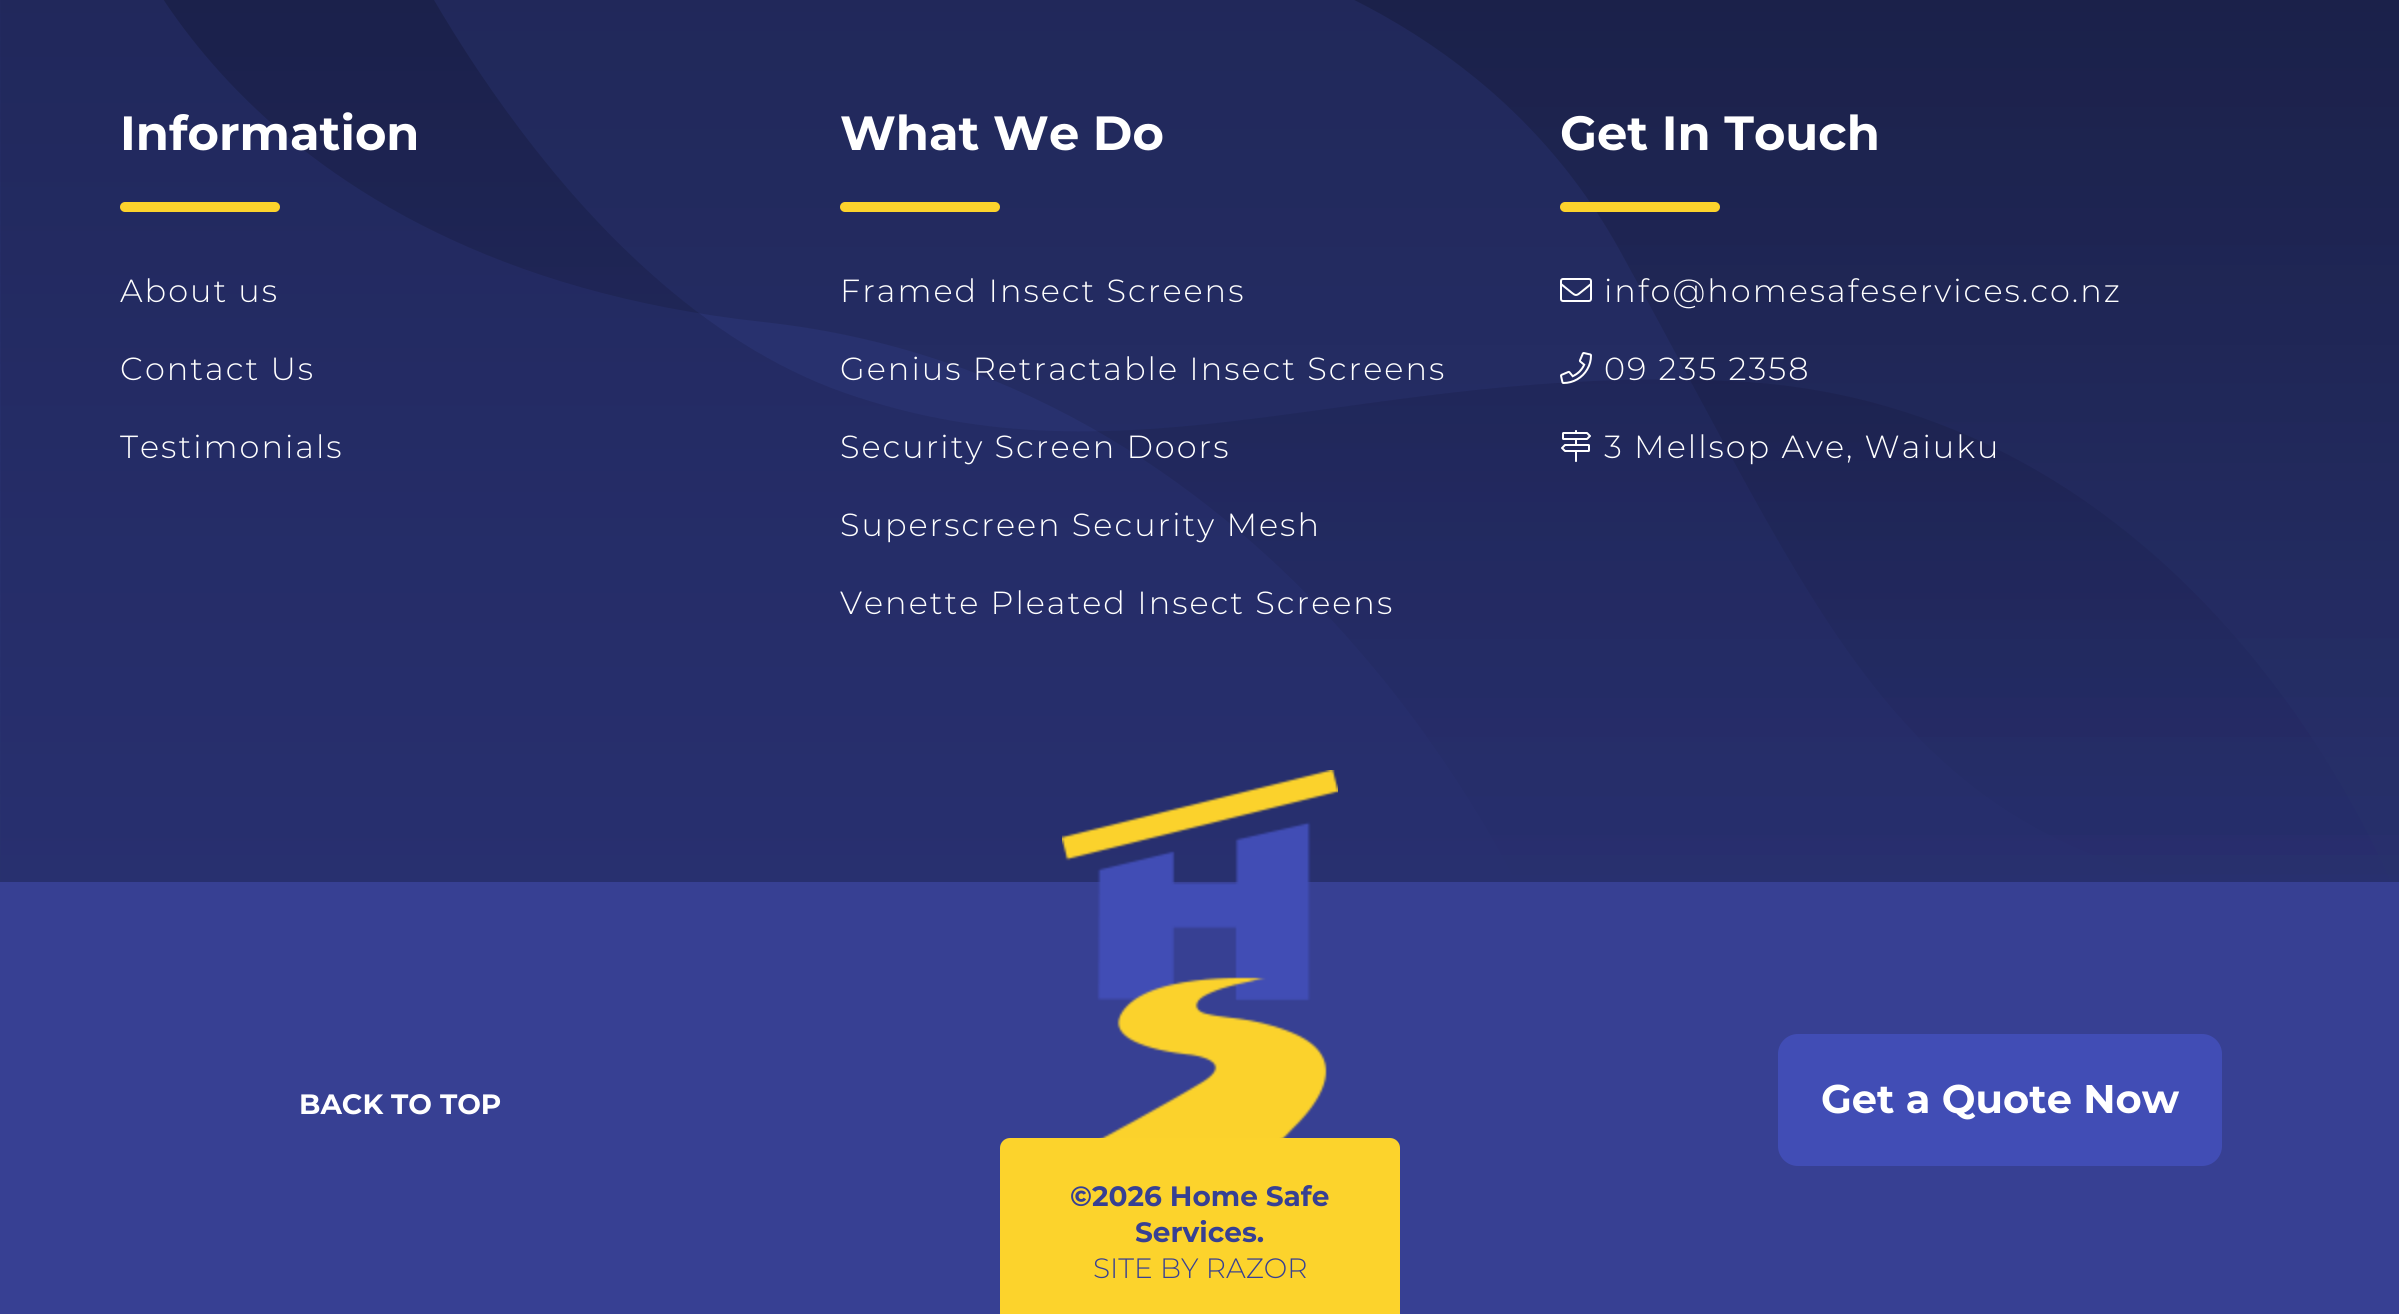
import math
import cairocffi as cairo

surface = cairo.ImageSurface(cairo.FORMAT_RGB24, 2399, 1314)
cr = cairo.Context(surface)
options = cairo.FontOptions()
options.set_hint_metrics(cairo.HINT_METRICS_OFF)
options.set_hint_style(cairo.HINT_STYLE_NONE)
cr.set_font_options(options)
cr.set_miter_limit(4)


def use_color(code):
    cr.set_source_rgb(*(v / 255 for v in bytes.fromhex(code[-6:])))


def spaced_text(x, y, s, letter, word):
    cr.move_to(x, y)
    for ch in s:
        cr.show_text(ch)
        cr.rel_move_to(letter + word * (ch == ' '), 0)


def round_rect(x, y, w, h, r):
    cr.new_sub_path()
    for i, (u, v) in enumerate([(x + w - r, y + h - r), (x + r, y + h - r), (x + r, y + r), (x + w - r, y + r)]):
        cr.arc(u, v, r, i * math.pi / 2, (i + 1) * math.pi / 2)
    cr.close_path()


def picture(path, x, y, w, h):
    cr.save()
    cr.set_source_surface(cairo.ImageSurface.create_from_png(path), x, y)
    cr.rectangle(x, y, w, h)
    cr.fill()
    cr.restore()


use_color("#28316e")
cr.paint()
gradient = cairo.LinearGradient(1200, 904, 1200, -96)
gradient.add_color_stop_rgba(0, 0.157, 0.188, 0.439, 1)
gradient.add_color_stop_rgba(1, 0.125, 0.153, 0.349, 1)
cr.set_source(gradient)
cr.new_path()
cr.move_to(383, -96)
cr.curve_to(383, -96, 558, 293, 845, 393)
cr.curve_to(1132, 493, 1364, 364, 1731, 381)
cr.curve_to(2216, 404, 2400, 904, 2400, 904)
cr.line_to(1, 904)
cr.line_to(0, -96)
cr.close_path()
cr.fill()
gradient = cairo.LinearGradient(1257, 904, 1257, -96)
gradient.add_color_stop_rgba(0, 0.004, 0.004, 0.004, 0)
gradient.add_color_stop_rgba(1, 0.004, 0.004, 0.004, 0.2)
cr.set_source(gradient)
cr.new_path()
cr.move_to(114, -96)
cr.curve_to(114, -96, 228, 264, 763, 322)
cr.curve_to(1298, 380, 1526, 904, 1526, 904)
cr.line_to(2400, 904)
cr.line_to(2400, -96)
cr.close_path()
cr.fill()
gradient = cairo.LinearGradient(1609, 904, 1609, -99)
gradient.add_color_stop_rgba(0, 0.004, 0.004, 0.004, 0)
gradient.add_color_stop_rgba(1, 0.004, 0.004, 0.004, 0.2)
cr.set_source(gradient)
cr.new_path()
cr.move_to(819, -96)
cr.curve_to(819, -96, 1394, -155, 1619, 249)
cr.curve_to(1843, 654, 1907, 875, 2331, 904)
cr.line_to(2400, 904)
cr.line_to(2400, -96)
cr.close_path()
cr.fill()
cr.select_font_face("Montserrat", cairo.FONT_SLANT_NORMAL, cairo.FONT_WEIGHT_BOLD)
cr.set_font_size(48)
use_color("#ffffff")
cr.move_to(120, 150)
cr.show_text("Information")
use_color("#fcd32c")
round_rect(120, 202, 160, 10, 5)
cr.fill()
cr.select_font_face("Montserrat Light")
cr.set_font_size(32)
use_color("#ffffff")
spaced_text(120, 302, "About us", 2, 0)
spaced_text(120, 380, "Contact Us", 2, 0)
spaced_text(120, 458, "Testimonials", 2, 0)
cr.select_font_face("Montserrat", cairo.FONT_SLANT_NORMAL, cairo.FONT_WEIGHT_BOLD)
cr.set_font_size(48)
cr.move_to(840, 150)
cr.show_text("What We Do")
use_color("#fcd32c")
round_rect(840, 202, 160, 10, 5)
cr.fill()
cr.select_font_face("Montserrat Light")
cr.set_font_size(32)
use_color("#ffffff")
spaced_text(840, 302, "Framed Insect Screens", 2, 0)
spaced_text(840, 380, "Genius Retractable Insect Screens", 2, 0)
spaced_text(840, 458, "Security Screen Doors", 2, 0)
spaced_text(840, 536, "Superscreen Security Mesh", 2, 0)
spaced_text(840, 614, "Venette Pleated Insect Screens", 2, 0)
cr.select_font_face("Montserrat", cairo.FONT_SLANT_NORMAL, cairo.FONT_WEIGHT_BOLD)
cr.set_font_size(48)
cr.move_to(1560, 150)
cr.show_text("Get In Touch")
use_color("#fcd32c")
round_rect(1560, 202, 160, 10, 5)
cr.fill()
picture("img1.png", 1560, 278, 32, 24)
cr.select_font_face("Montserrat Light")
cr.set_font_size(32)
use_color("#ffffff")
spaced_text(1604, 302, "info@homesafeservices.co.nz", 2, 0)
picture("img2.png", 1560, 352, 32, 32)
spaced_text(1604, 380, "09 235 2358", 2, 0)
picture("img3.png", 1561, 430, 30, 32)
spaced_text(1604, 458, "3 Mellsop Ave, Waiuku", 2, 0)
use_color("#374093")
cr.rectangle(0, 882, 2399, 432)
cr.fill()
cr.select_font_face("Montserrat", cairo.FONT_SLANT_NORMAL, cairo.FONT_WEIGHT_BOLD)
cr.set_font_size(28)
use_color("#ffffff")
cr.move_to(299, 1114)
cr.show_text("BACK TO TOP")
use_color("#414db5")
round_rect(1779, 1035, 442, 130, 19)
cr.fill_preserve()
cr.stroke()
cr.set_font_size(40)
use_color("#ffffff")
cr.move_to(1821, 1113)
cr.show_text("Get a Quote Now")
picture("img4.png", 1062, 770, 276, 368)
use_color("#fcd32c")
cr.new_path()
cr.move_to(1010, 1138)
cr.line_to(1390, 1138)
cr.curve_to(1395.5, 1138, 1400, 1142.5, 1400, 1148)
cr.line_to(1400, 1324)
cr.line_to(1000, 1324)
cr.line_to(1000, 1148)
cr.curve_to(1000, 1142.5, 1004.5, 1138, 1010, 1138)
cr.close_path()
cr.fill()
cr.set_font_size(28)
use_color("#374093")
cr.move_to(1070, 1206)
cr.show_text("©2026 Home Safe")
cr.move_to(1135, 1242)
cr.show_text("Services.")
cr.select_font_face("Montserrat Light")
cr.move_to(1093, 1278)
cr.show_text("SITE BY RAZOR")
surface.write_to_png("result.png")
